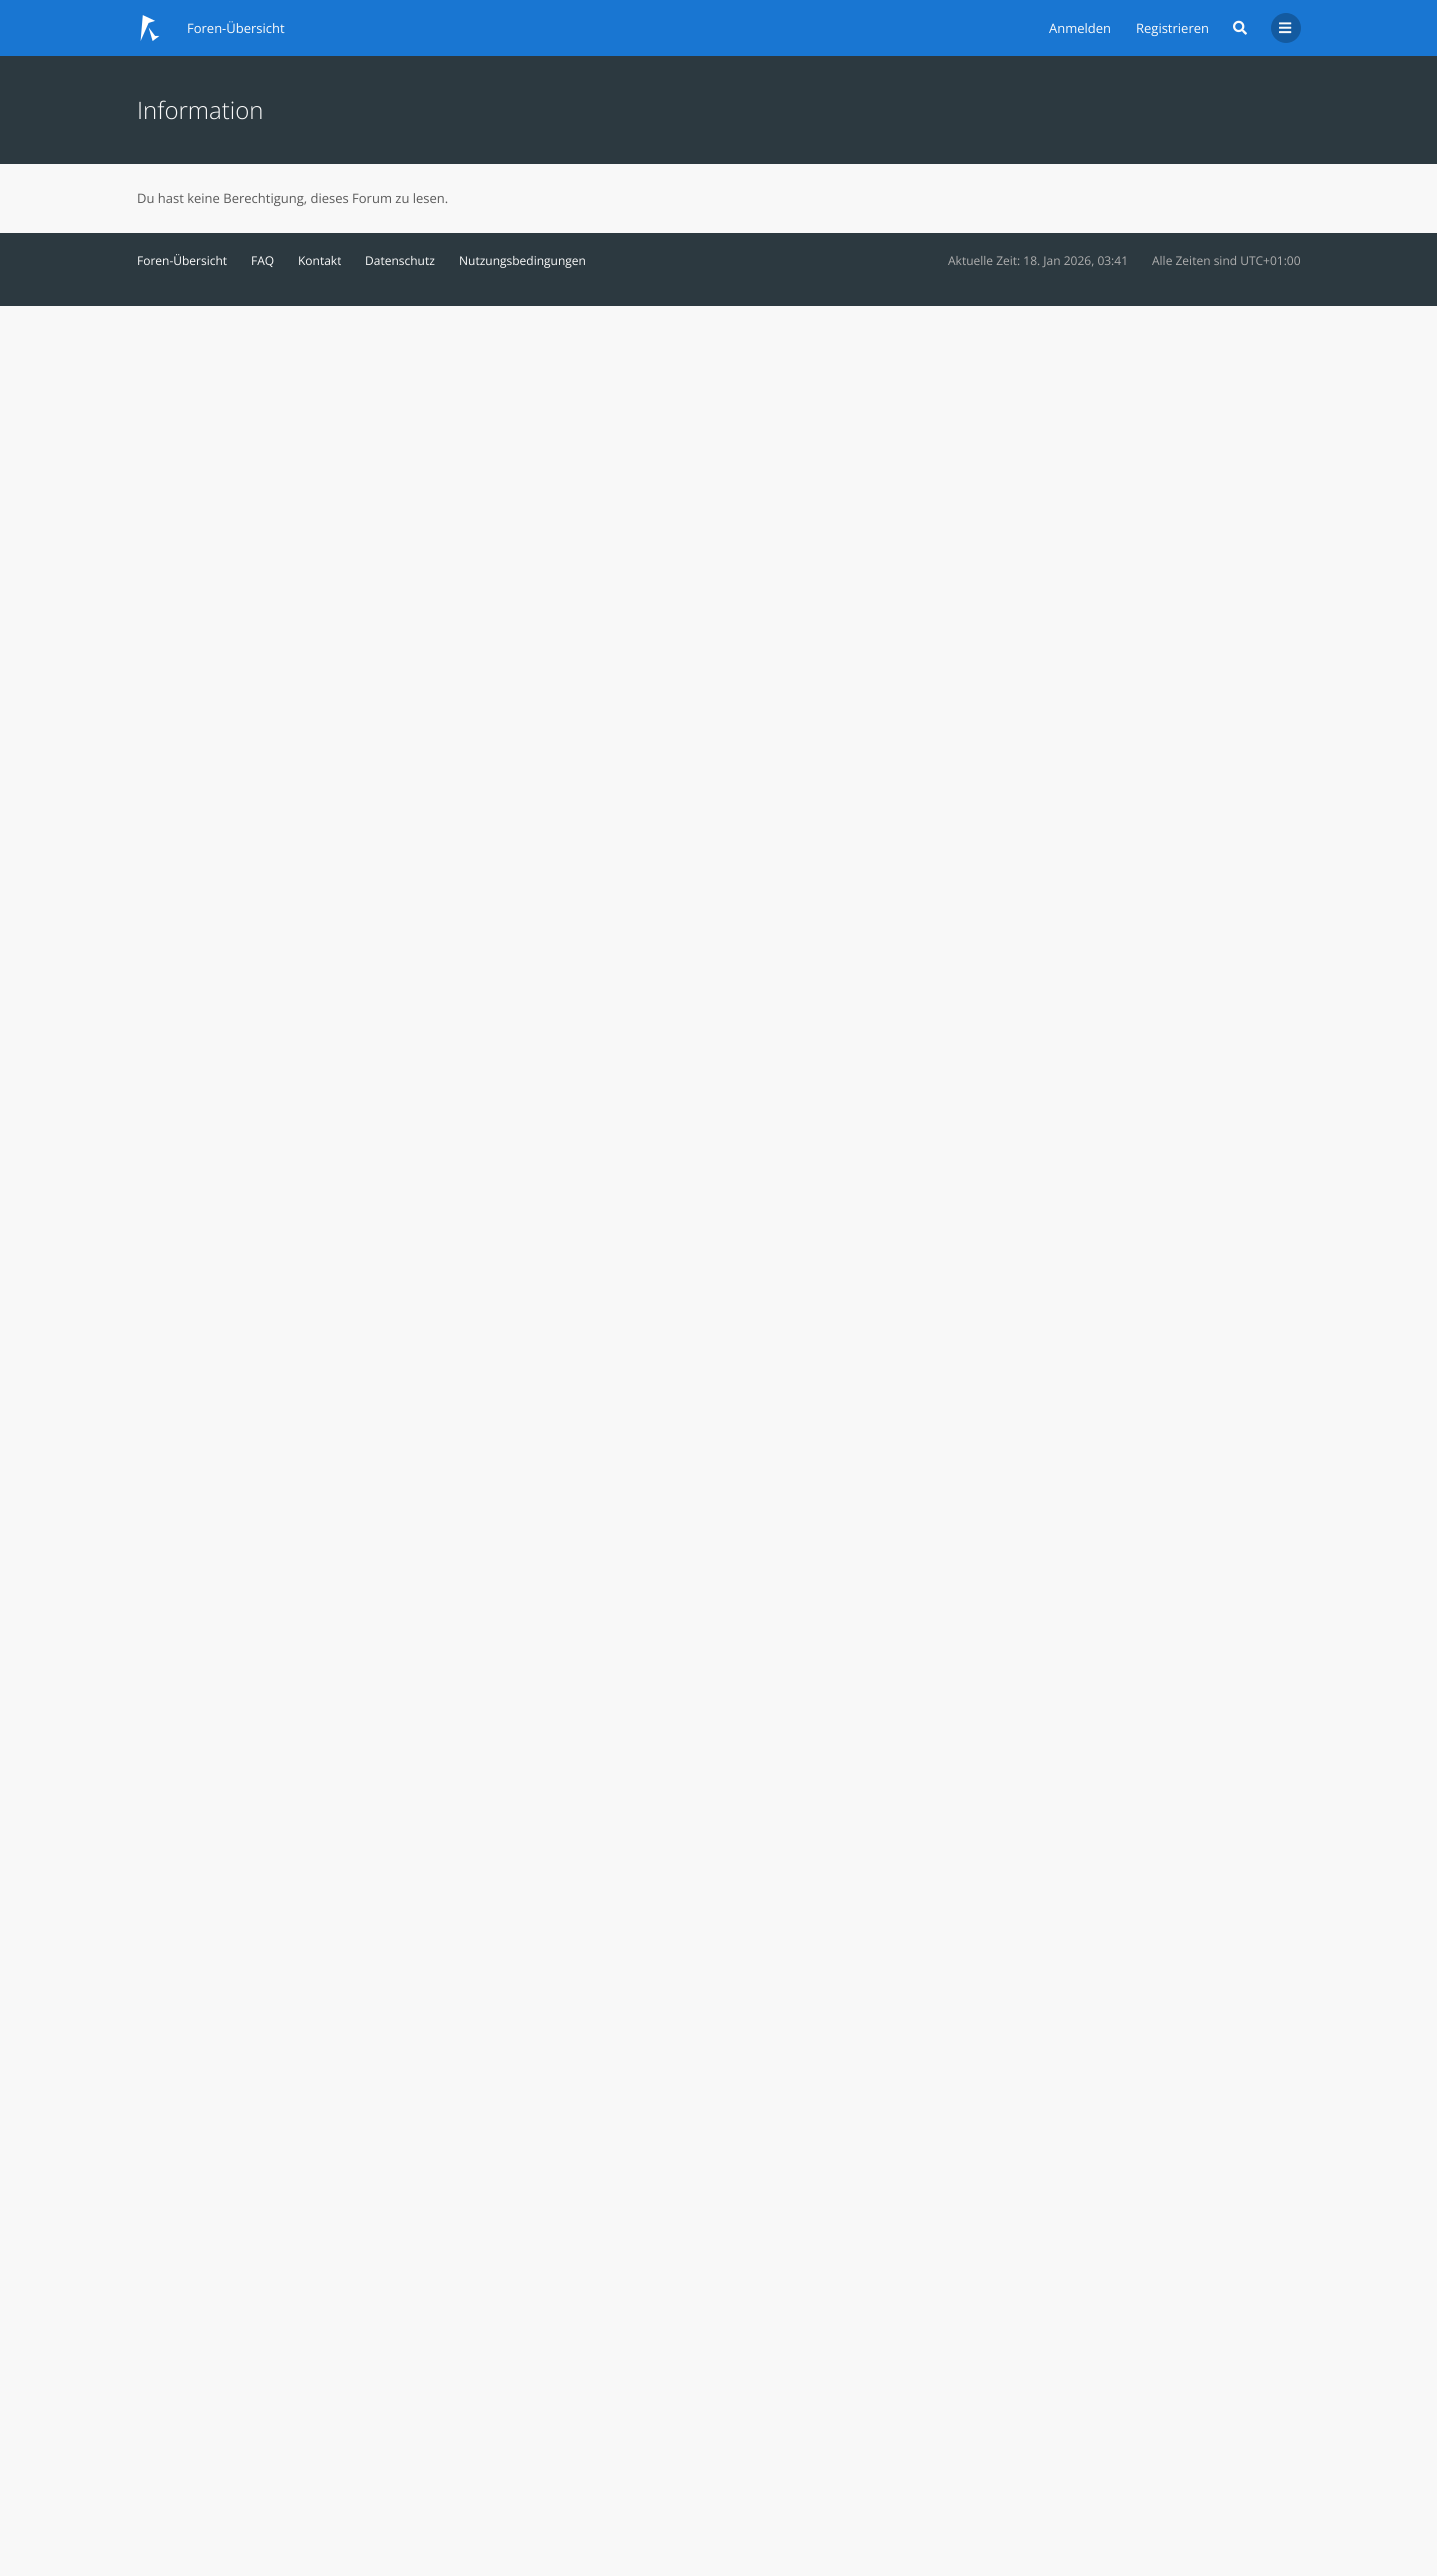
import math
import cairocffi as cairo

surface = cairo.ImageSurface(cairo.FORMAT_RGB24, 1437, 2576)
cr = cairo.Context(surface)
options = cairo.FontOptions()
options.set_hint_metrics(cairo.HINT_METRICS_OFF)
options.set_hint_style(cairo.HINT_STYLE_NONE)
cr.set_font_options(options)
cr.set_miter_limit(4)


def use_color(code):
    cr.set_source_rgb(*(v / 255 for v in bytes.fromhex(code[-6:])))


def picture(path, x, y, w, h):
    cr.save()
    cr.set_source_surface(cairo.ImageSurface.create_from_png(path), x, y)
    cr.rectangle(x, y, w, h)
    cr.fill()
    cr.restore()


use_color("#f8f8f8")
cr.paint()
use_color("#1976d2")
cr.rectangle(0, 0, 1437, 56)
cr.fill()
picture("img1.png", 140, 15, 20, 26)
cr.select_font_face("Open Sans")
cr.set_font_size(13)
use_color("#fafafa")
cr.move_to(187, 33)
cr.show_text("Foren-Übersicht")
cr.move_to(1049, 33)
cr.show_text("Anmelden")
cr.move_to(1136, 33)
cr.show_text("Registrieren")
picture("img2.png", 1233, 20, 14, 15)
use_color("#135aa0")
cr.arc(1286, 28, 15, 0, 2 * math.pi)
cr.fill()
picture("img3.png", 1279, 22, 13, 12)
use_color("#2c3940")
cr.rectangle(0, 56, 1437, 108)
cr.fill()
cr.select_font_face("Open Sans Light")
cr.set_font_size(24)
use_color("#fafafa")
cr.move_to(137, 119)
cr.show_text("Information")
cr.select_font_face("Open Sans")
cr.set_font_size(13)
use_color("#5a5a5a")
cr.move_to(137, 203)
cr.show_text("Du hast keine Berechtigung, dieses Forum zu lesen.")
use_color("#2c3940")
cr.rectangle(0, 233, 1437, 73)
cr.fill()
cr.set_font_size(12)
use_color("#fafafa")
cr.move_to(137, 265)
cr.show_text("Foren-Übersicht")
cr.move_to(251, 265)
cr.show_text("FAQ")
cr.move_to(298, 265)
cr.show_text("Kontakt")
cr.move_to(365, 265)
cr.show_text("Datenschutz")
cr.move_to(459, 265)
cr.show_text("Nutzungsbedingungen")
use_color("#aeaeae")
cr.move_to(948, 265)
cr.show_text("Aktuelle Zeit: 18. Jan 2026, 03:41")
cr.move_to(1152, 265)
cr.show_text("Alle Zeiten sind UTC+01:00")
surface.write_to_png("result.png")
